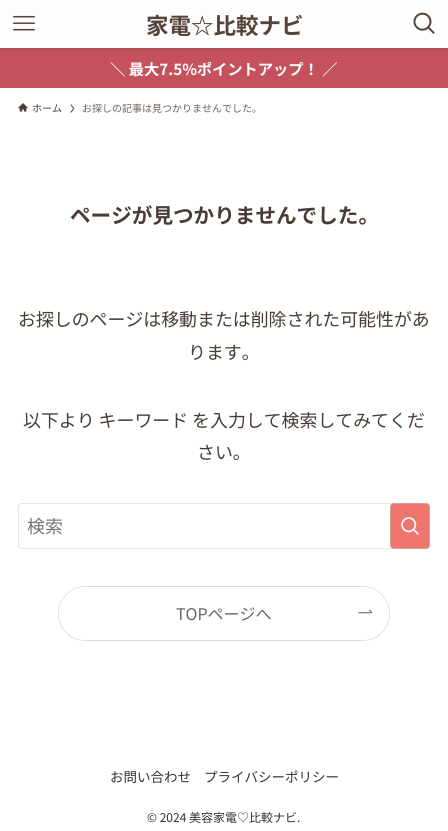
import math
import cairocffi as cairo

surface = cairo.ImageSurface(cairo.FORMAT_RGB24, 448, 831)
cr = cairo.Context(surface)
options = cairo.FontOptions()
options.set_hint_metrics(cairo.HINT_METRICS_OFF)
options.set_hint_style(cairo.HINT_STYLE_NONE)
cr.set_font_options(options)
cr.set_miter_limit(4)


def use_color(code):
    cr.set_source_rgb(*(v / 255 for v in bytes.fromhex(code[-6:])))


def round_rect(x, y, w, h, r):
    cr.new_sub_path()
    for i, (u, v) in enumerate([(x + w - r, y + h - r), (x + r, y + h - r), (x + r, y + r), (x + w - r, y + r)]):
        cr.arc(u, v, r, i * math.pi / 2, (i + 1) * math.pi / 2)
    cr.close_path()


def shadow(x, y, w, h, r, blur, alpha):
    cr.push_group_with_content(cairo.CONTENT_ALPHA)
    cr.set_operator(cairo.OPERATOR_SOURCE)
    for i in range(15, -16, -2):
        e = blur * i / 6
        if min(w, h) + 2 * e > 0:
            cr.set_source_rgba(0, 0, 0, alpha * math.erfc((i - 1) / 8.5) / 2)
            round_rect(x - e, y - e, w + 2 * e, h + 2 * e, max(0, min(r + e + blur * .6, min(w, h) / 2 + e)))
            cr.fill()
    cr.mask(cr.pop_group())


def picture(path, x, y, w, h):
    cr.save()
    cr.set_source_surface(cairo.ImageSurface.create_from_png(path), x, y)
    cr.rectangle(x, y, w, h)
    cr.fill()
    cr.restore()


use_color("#ffffff")
cr.paint()
use_color("#c4515b")
cr.rectangle(0, 48, 448, 40)
cr.fill()
use_color("#000000")
shadow(0, 1, 448, 48, 0, 2, 0.12)
use_color("#fdfdfd")
cr.rectangle(0, 0, 448, 48)
cr.fill()
picture("img1.png", 13, 15, 22, 16)
cr.select_font_face("Noto Sans JP", cairo.FONT_SLANT_NORMAL, cairo.FONT_WEIGHT_BOLD)
cr.set_font_size(22.5)
use_color("#55433b")
cr.move_to(146, 34)
cr.show_text("家電☆比較ナビ")
picture("img2.png", 413, 12, 22, 22)
cr.set_font_size(15.25)
use_color("#ffffff")
cr.move_to(110, 75)
cr.show_text("＼ 最大7.5%ポイントアップ！ ／")
picture("img3.png", 18, 103, 10, 9)
cr.select_font_face("Noto Sans JP")
cr.set_font_size(10)
use_color("#4a3b36")
cr.move_to(32, 112)
cr.show_text("ホーム")
use_color("#6e625e")
cr.new_path()
cr.move_to(71.5, 104.5)
cr.line_to(70, 104.5)
cr.line_to(73, 108.5)
cr.line_to(70, 112.5)
cr.line_to(71.5, 112.5)
cr.line_to(74.5, 108.5)
cr.close_path()
cr.fill()
cr.move_to(82, 112)
cr.show_text("お探しの記事は見つかりませんでした。")
cr.select_font_face("Noto Sans JP", cairo.FONT_SLANT_NORMAL, cairo.FONT_WEIGHT_BOLD)
cr.set_font_size(20.6)
use_color("#4a3b36")
cr.move_to(70, 223)
cr.show_text("ページが見つかりませんでした。")
cr.select_font_face("Noto Sans JP")
cr.set_font_size(17.9)
cr.move_to(18, 326)
cr.show_text("お探しのページは移動または削除された可能性があ")
cr.move_to(188, 359)
cr.show_text("ります。")
cr.move_to(23, 427)
cr.show_text("以下より キーワード を入力して検索してみてくだ")
cr.move_to(197, 459)
cr.show_text("さい。")
round_rect(18.5, 503.5, 411, 45, 3.5)
use_color("#e3e3e3")
cr.set_line_width(1)
cr.stroke()
use_color("#757575")
cr.move_to(27, 533)
cr.show_text("検索")
use_color("#ef766e")
round_rect(390, 503, 40, 46, 4)
cr.fill()
round_rect(390.5, 503.5, 39, 45, 3.5)
cr.set_source_rgba(0.78, 0.78, 0.78, 0.5)
cr.stroke()
picture("img4.png", 401, 517, 18, 18)
round_rect(58.5, 586.5, 331, 54, 27)
use_color("#dcdcdc")
cr.stroke()
use_color("#ffffff")
round_rect(59, 587, 330, 53, 26.5)
cr.fill()
cr.set_font_size(16)
use_color("#666666")
cr.move_to(176, 620)
cr.show_text("TOPページへ")
picture("img5.png", 358, 609, 15, 5)
cr.set_font_size(13.5)
use_color("#333333")
cr.move_to(110, 782)
cr.show_text("お問い合わせ")
cr.move_to(204, 782)
cr.show_text("プライバシーポリシー")
cr.set_font_size(12)
cr.move_to(147, 822)
cr.show_text("© 2024 美容家電♡比較ナビ.")
surface.write_to_png("result.png")
